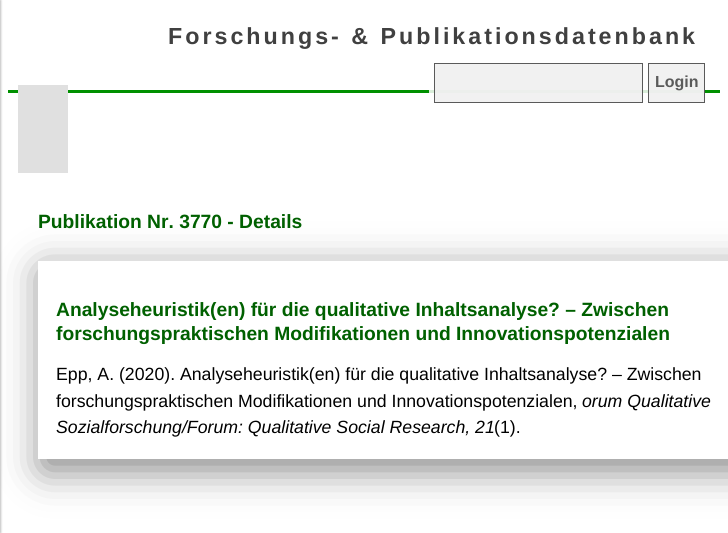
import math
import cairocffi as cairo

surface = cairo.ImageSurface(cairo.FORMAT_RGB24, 728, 533)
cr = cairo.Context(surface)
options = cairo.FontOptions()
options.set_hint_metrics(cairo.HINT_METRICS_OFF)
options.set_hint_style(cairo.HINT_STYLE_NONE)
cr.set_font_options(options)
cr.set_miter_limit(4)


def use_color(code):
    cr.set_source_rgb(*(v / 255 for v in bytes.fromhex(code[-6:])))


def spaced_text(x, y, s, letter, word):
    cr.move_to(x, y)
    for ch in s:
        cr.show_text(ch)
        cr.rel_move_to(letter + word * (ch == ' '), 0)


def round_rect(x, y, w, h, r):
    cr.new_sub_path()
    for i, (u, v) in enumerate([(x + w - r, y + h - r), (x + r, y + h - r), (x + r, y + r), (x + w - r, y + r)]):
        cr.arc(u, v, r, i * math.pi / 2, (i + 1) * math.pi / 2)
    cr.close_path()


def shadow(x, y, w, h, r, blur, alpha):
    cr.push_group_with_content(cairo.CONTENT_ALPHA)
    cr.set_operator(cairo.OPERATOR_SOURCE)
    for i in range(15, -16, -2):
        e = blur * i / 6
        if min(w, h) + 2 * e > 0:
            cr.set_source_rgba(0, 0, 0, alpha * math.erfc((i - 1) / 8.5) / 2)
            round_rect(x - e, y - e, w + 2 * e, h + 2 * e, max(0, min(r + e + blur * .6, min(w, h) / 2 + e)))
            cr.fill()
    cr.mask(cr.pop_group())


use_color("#ffffff")
cr.paint()
use_color("#f1f1f1")
cr.rectangle(648, 63, 57, 40)
cr.fill()
cr.rectangle(434, 63, 209, 40)
cr.fill()
use_color("#009000")
cr.rectangle(8, 90, 712, 3)
cr.fill()
use_color("#d9eed9")
cr.rectangle(429, 90, 219, 3)
cr.fill()
use_color("#ecefec")
cr.rectangle(648, 90, 57, 3)
cr.fill()
cr.rectangle(434, 90, 209, 3)
cr.fill()
use_color("#000000")
shadow(-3, 0, 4, 533, 0, 1, 0.25)
use_color("#e0e0e0")
cr.rectangle(18, 85, 50, 88)
cr.fill()
cr.select_font_face("Liberation Sans", cairo.FONT_SLANT_NORMAL, cairo.FONT_WEIGHT_BOLD)
cr.set_font_size(23.25)
use_color("#404040")
spaced_text(168, 44, "Forschungs- & Publikationsdatenbank", 3, 0)
cr.rectangle(434.5, 63.5, 208, 39)
cr.set_source_rgba(0.251, 0.251, 0.251, 0.85)
cr.set_line_width(1)
cr.stroke()
cr.rectangle(648.5, 63.5, 56, 39)
cr.stroke()
cr.set_font_size(16)
use_color("#5b5b5b")
cr.move_to(655, 87)
cr.show_text("Login")
cr.save()
cr.set_fill_rule(cairo.FILL_RULE_EVEN_ODD)
cr.new_path()
cr.move_to(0, 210)
cr.line_to(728, 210)
cr.line_to(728, 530)
cr.line_to(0, 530)
cr.close_path()
cr.move_to(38, 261)
cr.line_to(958, 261)
cr.line_to(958, 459)
cr.line_to(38, 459)
cr.close_path()
cr.clip()
use_color("#808080")
shadow(43, 271, 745, 198, 0, 20, 1)
cr.restore()
cr.set_font_size(19.25)
use_color("#006000")
cr.move_to(38, 228)
cr.show_text("Publikation Nr. 3770 - Details")
cr.move_to(56, 316)
cr.show_text("Analyseheuristik(en) für die qualitative Inhaltsanalyse? – Zwischen")
cr.move_to(56, 340)
cr.show_text("forschungspraktischen Modifikationen und Innovationspotenzialen")
cr.select_font_face("Liberation Sans")
cr.set_font_size(17.7)
use_color("#000000")
cr.move_to(56, 380)
cr.show_text("Epp, A. (2020). Analyseheuristik(en) für die qualitative Inhaltsanalyse? – Zwischen")
cr.move_to(56, 407)
cr.show_text("forschungspraktischen Modifikationen und Innovationspotenzialen,")
cr.select_font_face("Liberation Sans", cairo.FONT_SLANT_ITALIC)
cr.move_to(582, 407)
cr.show_text("orum Qualitative")
cr.move_to(56, 433)
cr.show_text("Sozialforschung/Forum: Qualitative Social Research, 21")
cr.select_font_face("Liberation Sans")
cr.move_to(494, 433)
cr.show_text("(1).")
surface.write_to_png("result.png")
